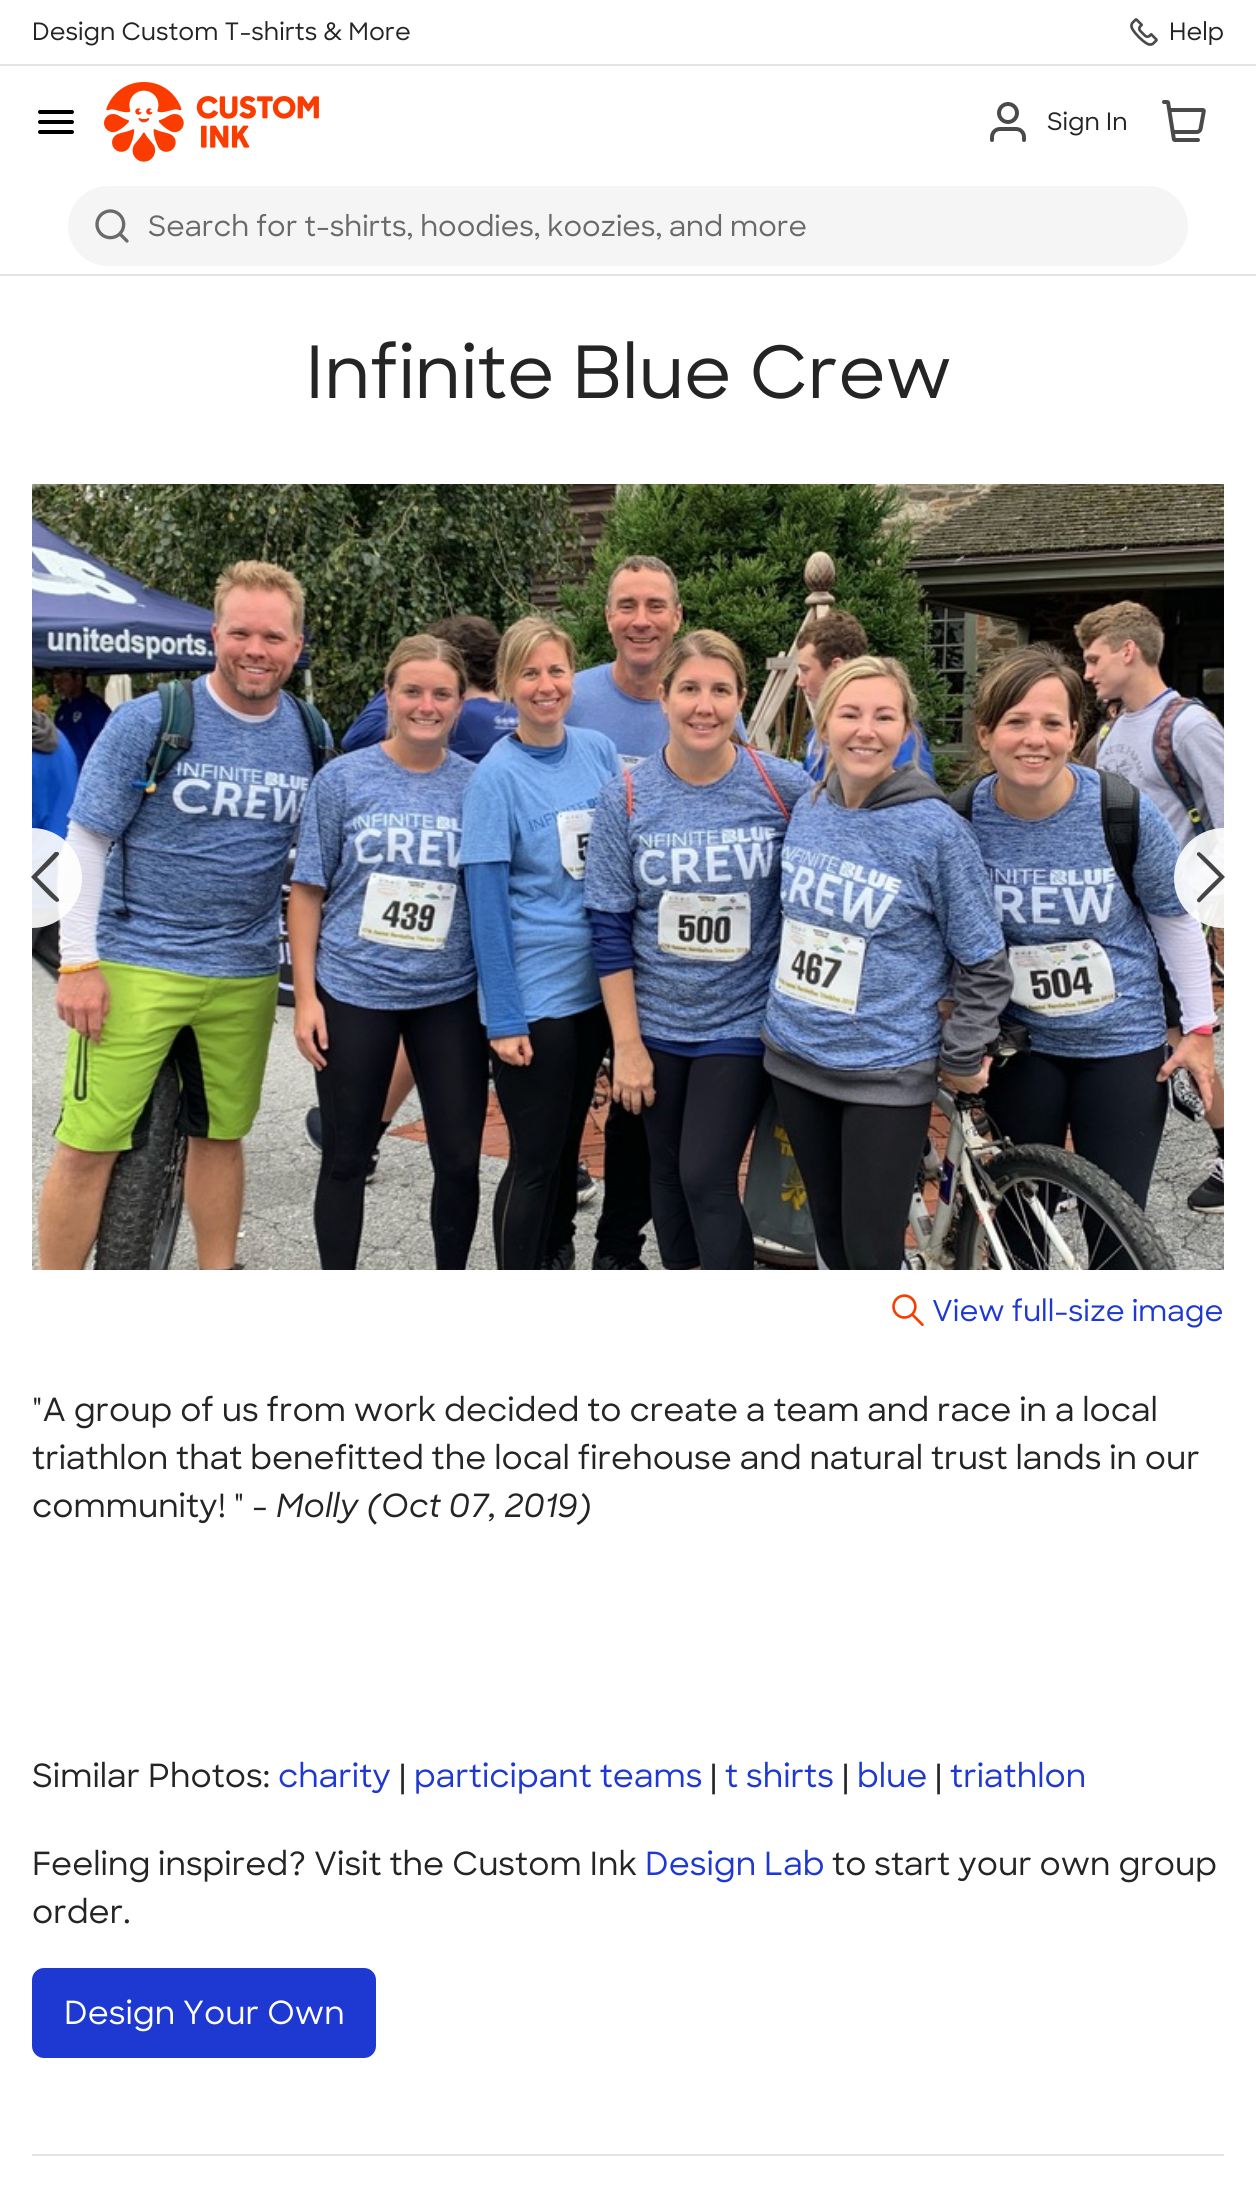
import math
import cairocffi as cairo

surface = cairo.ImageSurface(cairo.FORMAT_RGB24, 1256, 2205)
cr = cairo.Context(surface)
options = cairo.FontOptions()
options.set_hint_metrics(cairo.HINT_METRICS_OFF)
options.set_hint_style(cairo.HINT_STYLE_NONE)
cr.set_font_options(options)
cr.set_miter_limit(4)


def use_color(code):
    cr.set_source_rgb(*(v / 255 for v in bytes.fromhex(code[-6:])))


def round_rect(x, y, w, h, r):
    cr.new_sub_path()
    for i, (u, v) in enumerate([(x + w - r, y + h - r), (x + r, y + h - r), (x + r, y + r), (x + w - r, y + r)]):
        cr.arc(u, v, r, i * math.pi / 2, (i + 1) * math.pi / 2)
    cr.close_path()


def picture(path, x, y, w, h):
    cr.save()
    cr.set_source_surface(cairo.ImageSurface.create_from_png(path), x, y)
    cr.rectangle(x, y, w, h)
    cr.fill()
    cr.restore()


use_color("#ffffff")
cr.paint()
use_color("#e3e3e3")
cr.rectangle(0, 64, 1256, 2)
cr.fill()
cr.select_font_face("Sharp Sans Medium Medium")
cr.set_font_size(24)
use_color("#242424")
cr.move_to(32, 40)
cr.show_text("Design Custom T-shirts & More")
picture("img1.png", 1130, 18, 28, 28)
cr.move_to(1169, 40)
cr.show_text("Help")
use_color("#e3e3e3")
cr.rectangle(0, 274, 1256, 2)
cr.fill()
use_color("#000000")
round_rect(38, 110, 36, 4, 2)
cr.fill()
round_rect(38, 120, 36, 4, 2)
cr.fill()
round_rect(38, 130, 36, 4, 2)
cr.fill()
picture("img2.png", 104, 82, 215, 80)
picture("img3.png", 990, 102, 36, 40)
use_color("#242424")
cr.move_to(1047, 130)
cr.show_text("Sign In")
picture("img4.png", 1162, 100, 44, 42)
use_color("#f5f5f5")
round_rect(68, 186, 1120, 80, 40)
cr.fill()
picture("img5.png", 95, 209, 34, 34)
cr.set_font_size(28)
use_color("#696969")
cr.move_to(148, 236)
cr.show_text("Search for t-shirts, hoodies, koozies, and more")
cr.set_font_size(72)
use_color("#242424")
cr.move_to(305, 398)
cr.show_text("Infinite Blue Crew")
picture("img6.png", 32, 484, 1192, 786)
cr.set_source_rgba(1, 1, 1, 0.9)
cr.new_path()
cr.move_to(8, 828)
cr.line_to(32, 828)
cr.curve_to(59.5, 828, 82, 850.5, 82, 878)
cr.curve_to(82, 905.5, 59.5, 928, 32, 928)
cr.line_to(8, 928)
cr.close_path()
cr.fill()
cr.save()
cr.rectangle(26, 852, 38, 50)
cr.clip()
use_color("#444444")
cr.new_path()
cr.move_to(57, 902)
cr.curve_to(54, 902, 34, 880, 31, 877)
cr.line_to(55, 852)
cr.curve_to(57, 851, 59, 852, 59, 854)
cr.curve_to(59, 856, 40, 874, 37, 877)
cr.line_to(55, 895)
cr.curve_to(56, 896, 60, 899, 59, 901)
cr.close_path()
cr.fill()
cr.restore()
cr.new_path()
cr.move_to(1224, 828)
cr.line_to(1250, 828)
cr.line_to(1250, 928)
cr.line_to(1224, 928)
cr.curve_to(1196.5, 928, 1174, 905.5, 1174, 878)
cr.curve_to(1174, 850.5, 1196.5, 828, 1224, 828)
cr.close_path()
cr.fill()
use_color("#444444")
cr.new_path()
cr.move_to(1199, 852)
cr.curve_to(1201, 852, 1222, 874, 1225, 877)
cr.line_to(1200, 902)
cr.curve_to(1199, 903, 1197, 902, 1197, 900)
cr.curve_to(1197, 898, 1216, 880, 1219, 877)
cr.line_to(1197, 855)
cr.line_to(1197, 853)
cr.close_path()
cr.fill()
picture("img7.png", 892, 1294, 32, 32)
cr.set_font_size(28.75)
use_color("#1e39d2")
cr.move_to(932, 1321)
cr.show_text("View full-size image")
cr.set_font_size(32)
use_color("#242424")
cr.move_to(32, 1421)
cr.show_text("\"A group of us from work decided to create a team and race in a local")
cr.move_to(32, 1469)
cr.show_text("triathlon that benefitted the local firehouse and natural trust lands in our")
cr.move_to(32, 1517)
cr.show_text("community! \" -")
cr.select_font_face("Sharp Sans Medium Medium", cairo.FONT_SLANT_ITALIC)
cr.move_to(276, 1517)
cr.show_text("Molly (Oct 07, 2019)")
cr.select_font_face("Sharp Sans Medium Medium")
cr.move_to(32, 1787)
cr.show_text("Similar Photos:")
use_color("#1e39d2")
cr.move_to(278, 1787)
cr.show_text("charity")
use_color("#242424")
cr.move_to(399, 1787)
cr.show_text("|")
use_color("#1e39d2")
cr.move_to(414, 1787)
cr.show_text("participant teams")
use_color("#242424")
cr.move_to(710, 1787)
cr.show_text("|")
use_color("#1e39d2")
cr.move_to(725, 1787)
cr.show_text("t shirts")
use_color("#242424")
cr.move_to(842, 1787)
cr.show_text("|")
use_color("#1e39d2")
cr.move_to(857, 1787)
cr.show_text("blue")
use_color("#242424")
cr.move_to(935, 1787)
cr.show_text("|")
use_color("#1e39d2")
cr.move_to(950, 1787)
cr.show_text("triathlon")
use_color("#242424")
cr.move_to(32, 1875)
cr.show_text("Feeling inspired? Visit the Custom Ink")
use_color("#1e39d2")
cr.move_to(645, 1875)
cr.show_text("Design Lab")
use_color("#242424")
cr.move_to(832, 1875)
cr.show_text("to start your own group")
cr.move_to(32, 1923)
cr.show_text("order.")
use_color("#1e39d2")
round_rect(32, 1968, 344, 90, 12)
cr.fill()
use_color("#ffffff")
cr.move_to(64, 2024)
cr.show_text("Design Your Own")
use_color("#e3e3e3")
cr.rectangle(32, 2154, 1192, 2)
cr.fill()
surface.write_to_png("result.png")
